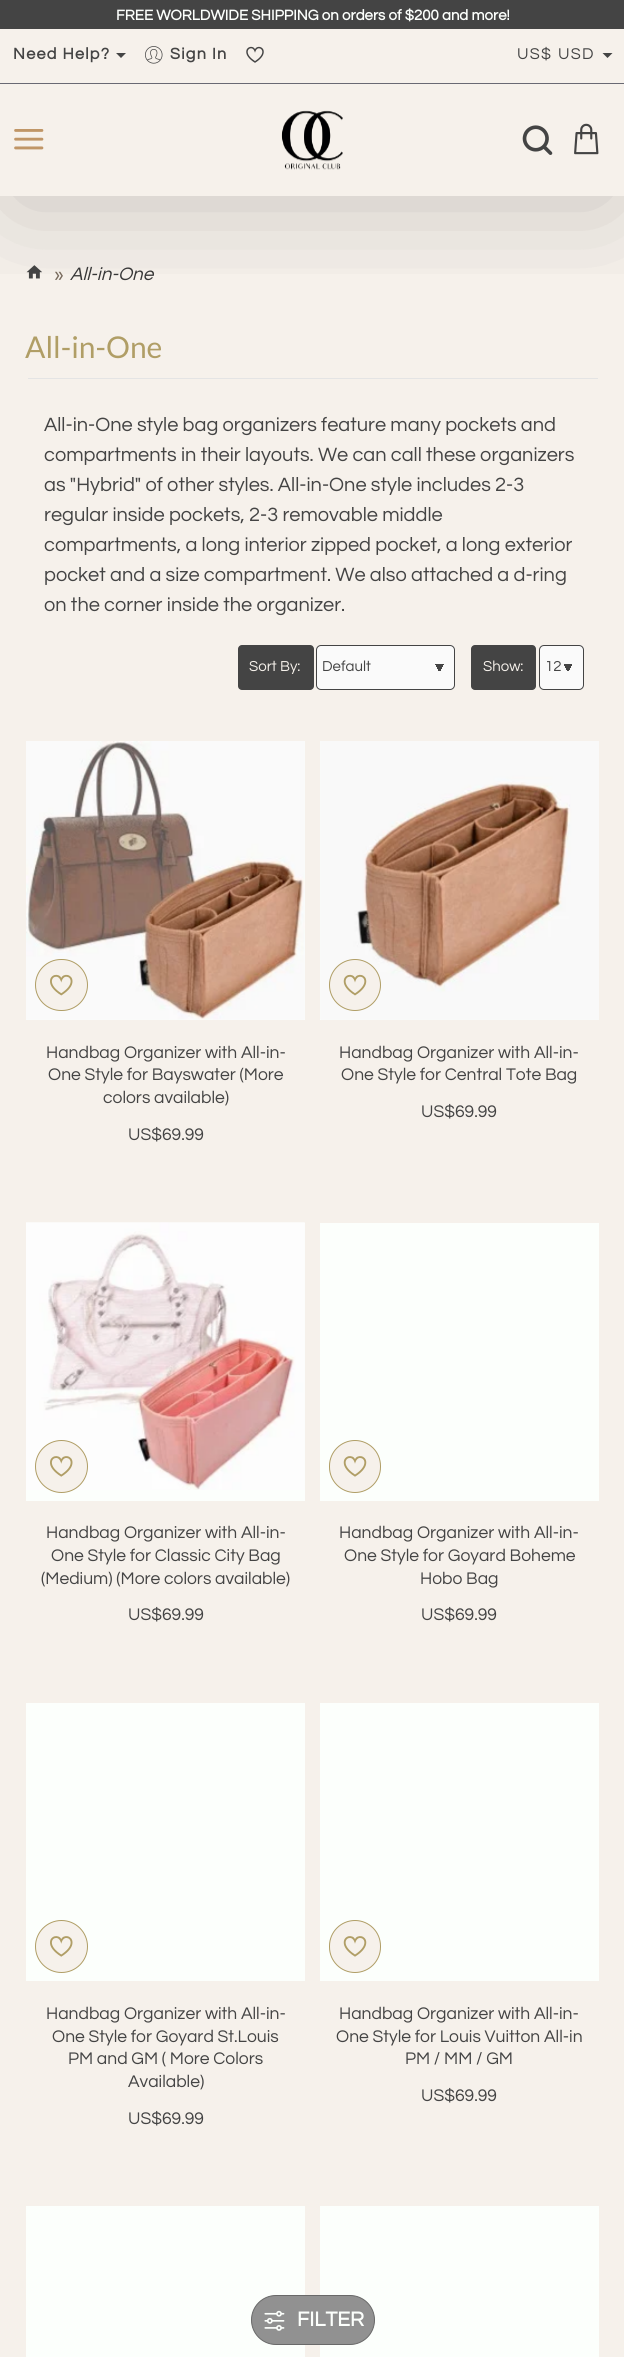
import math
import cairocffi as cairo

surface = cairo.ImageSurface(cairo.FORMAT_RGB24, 624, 2357)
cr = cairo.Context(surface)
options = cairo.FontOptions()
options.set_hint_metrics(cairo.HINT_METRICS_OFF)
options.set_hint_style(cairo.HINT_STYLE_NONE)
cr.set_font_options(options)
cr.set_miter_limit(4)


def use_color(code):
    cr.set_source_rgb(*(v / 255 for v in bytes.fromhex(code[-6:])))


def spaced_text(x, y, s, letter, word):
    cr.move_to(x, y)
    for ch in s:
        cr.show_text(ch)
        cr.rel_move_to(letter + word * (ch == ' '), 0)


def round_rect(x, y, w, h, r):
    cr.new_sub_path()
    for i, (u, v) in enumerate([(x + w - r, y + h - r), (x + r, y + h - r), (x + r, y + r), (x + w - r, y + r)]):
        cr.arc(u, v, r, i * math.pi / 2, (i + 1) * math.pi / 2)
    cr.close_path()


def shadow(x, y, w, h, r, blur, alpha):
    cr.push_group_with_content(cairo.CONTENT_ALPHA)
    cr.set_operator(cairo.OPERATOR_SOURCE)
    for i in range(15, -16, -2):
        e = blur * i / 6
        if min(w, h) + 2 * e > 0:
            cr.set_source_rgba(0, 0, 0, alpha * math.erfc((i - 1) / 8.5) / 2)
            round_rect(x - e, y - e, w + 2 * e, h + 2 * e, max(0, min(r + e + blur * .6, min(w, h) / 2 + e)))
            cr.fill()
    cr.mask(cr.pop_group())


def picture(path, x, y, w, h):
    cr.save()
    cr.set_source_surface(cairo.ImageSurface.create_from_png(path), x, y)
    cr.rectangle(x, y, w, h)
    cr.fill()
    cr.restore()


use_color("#444444")
cr.paint()
cr.select_font_face("Questrial", cairo.FONT_SLANT_NORMAL, cairo.FONT_WEIGHT_BOLD)
cr.set_font_size(15)
use_color("#fcfffc")
cr.move_to(116, 20)
cr.show_text("FREE WORLDWIDE SHIPPING on orders of $200 and more!")
use_color("#f6f1eb")
cr.rectangle(0, 84, 624, 2273)
cr.fill()
picture("img7.png", 26, 265, 16, 14)
cr.save()
cr.rectangle(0, 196, 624, 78)
cr.clip()
use_color("#000000")
shadow(13, 115, 600, 88, 0, 56, 0.2)
cr.restore()
picture("img1.png", 281, 110, 62, 60)
picture("img2.png", 14, 129, 30, 21)
picture("img3.png", 522, 125, 31, 30)
picture("img4.png", 574, 123, 25, 32)
cr.rectangle(0, 29, 624, 54)
cr.fill()
use_color("#696973")
cr.rectangle(0, 83, 624, 1)
cr.fill()
cr.set_font_size(16.25)
use_color("#444444")
spaced_text(13, 59, "Need Help?", 1.25, 0)
cr.new_path()
cr.move_to(116, 53)
cr.line_to(126, 53)
cr.line_to(121, 58)
cr.close_path()
cr.fill()
picture("img5.png", 145, 46, 18, 18)
spaced_text(170, 59, "Sign In", 1.25, 0)
picture("img6.png", 246, 46, 18, 17)
cr.select_font_face("Questrial")
spaced_text(517, 59, "US$", 1.25, 0)
spaced_text(558, 59, "USD", 1.25, 0)
cr.new_path()
cr.move_to(602.5, 53)
cr.line_to(612.5, 53)
cr.line_to(607.5, 58)
cr.close_path()
cr.fill()
cr.set_font_size(20)
use_color("#786b5d")
cr.move_to(54, 281)
cr.show_text("»")
cr.select_font_face("Questrial", cairo.FONT_SLANT_ITALIC)
cr.set_font_size(18.75)
use_color("#373737")
cr.move_to(70, 280)
cr.show_text("All-in-One")
use_color("#e4e4e4")
cr.rectangle(28, 378, 570, 1)
cr.fill()
cr.select_font_face("Lato")
cr.set_font_size(30)
use_color("#b09e66")
cr.move_to(25, 358)
cr.show_text("All-in-One")
cr.select_font_face("Questrial")
cr.set_font_size(20)
use_color("#444444")
cr.move_to(44, 431)
cr.show_text("All-in-One style bag organizers feature many pockets and")
cr.move_to(44, 461)
cr.show_text("compartments in their layouts. We can call these organizers")
cr.move_to(44, 491)
cr.show_text("as \"Hybrid\" of other styles. All-in-One style includes 2-3")
cr.move_to(44, 521)
cr.show_text("regular inside pockets, 2-3 removable middle")
cr.move_to(44, 551)
cr.show_text("compartments, a long interior zipped pocket, a long exterior")
cr.move_to(44, 581)
cr.show_text("pocket and a size compartment. We also attached a d-ring")
cr.move_to(44, 611)
cr.show_text("on the corner inside the organizer.")
round_rect(238, 645, 76, 45, 4)
cr.fill()
cr.set_font_size(15)
use_color("#f6f1eb")
cr.move_to(249, 671)
cr.show_text("Sort By:")
use_color("#fafafa")
round_rect(316, 645, 139, 45, 5)
cr.fill()
gradient = cairo.LinearGradient(448, 663, 431, 672)
gradient.add_color_stop_rgba(0.63, 0.267, 0.267, 0.267, 1)
gradient.add_color_stop_rgba(0.63, 0.98, 0.98, 0.98, 1)
cr.set_source(gradient)
cr.rectangle(430, 664, 19, 7)
cr.fill()
gradient = cairo.LinearGradient(431, 663, 448, 672)
gradient.add_color_stop_rgba(0.63, 0.98, 0.98, 0.98, 0)
gradient.add_color_stop_rgba(0.63, 0.98, 0.98, 0.98, 1)
cr.set_source(gradient)
cr.rectangle(441, 664, 8, 7)
cr.fill()
round_rect(316.5, 645.5, 138, 44, 4.5)
use_color("#444444")
cr.set_line_width(1)
cr.stroke()
cr.move_to(322, 671)
cr.show_text("Default")
round_rect(471, 645, 65, 45, 4)
cr.fill()
use_color("#f6f1eb")
cr.move_to(483, 671)
cr.show_text("Show:")
use_color("#fafafa")
round_rect(539, 645, 45, 45, 5)
cr.fill()
gradient = cairo.LinearGradient(577, 663, 559, 672)
gradient.add_color_stop_rgba(0.63, 0.267, 0.267, 0.267, 1)
gradient.add_color_stop_rgba(0.63, 0.98, 0.98, 0.98, 1)
cr.set_source(gradient)
cr.rectangle(559, 664, 19, 7)
cr.fill()
gradient = cairo.LinearGradient(559, 663, 577, 672)
gradient.add_color_stop_rgba(0.63, 0.98, 0.98, 0.98, 0)
gradient.add_color_stop_rgba(0.63, 0.98, 0.98, 0.98, 1)
cr.set_source(gradient)
cr.rectangle(569, 664, 9, 7)
cr.fill()
round_rect(539.5, 645.5, 44, 44, 4.5)
use_color("#444444")
cr.stroke()
cr.move_to(545, 671)
cr.show_text("12")
use_color("#fcfffc")
cr.rectangle(26, 741, 279, 279)
cr.fill()
picture("img8.png", 26, 741, 279, 279)
use_color("#f6f1eb")
round_rect(35.5, 959.5, 52, 51, 25.5)
cr.fill_preserve()
use_color("#b09e66")
cr.stroke()
picture("img9.png", 50, 974, 23, 22)
cr.set_font_size(17.5)
use_color("#444444")
cr.move_to(46, 1058)
cr.show_text("Handbag Organizer with All-in-")
cr.move_to(48, 1080)
cr.show_text("One Style for Bayswater (More")
cr.move_to(103, 1103)
cr.show_text("colors available)")
cr.move_to(128, 1140)
cr.show_text("US$69.99")
use_color("#fcfffc")
cr.rectangle(320, 741, 279, 279)
cr.fill()
picture("img10.png", 320, 741, 279, 279)
use_color("#f6f1eb")
cr.arc(355, 985, 25.5, 0, 2 * math.pi)
cr.fill_preserve()
use_color("#b09e66")
cr.stroke()
picture("img11.png", 343, 974, 24, 22)
use_color("#444444")
cr.move_to(339, 1058)
cr.show_text("Handbag Organizer with All-in-")
cr.move_to(341, 1080)
cr.show_text("One Style for Central Tote Bag")
cr.move_to(421, 1117)
cr.show_text("US$69.99")
use_color("#fcfffc")
cr.rectangle(26, 1223, 279, 278)
cr.fill()
picture("img12.png", 26, 1222, 279, 268)
use_color("#f6f1eb")
cr.arc(61.5, 1466.5, 26, 0, 2 * math.pi)
cr.fill_preserve()
use_color("#b09e66")
cr.stroke()
picture("img13.png", 50, 1456, 23, 21)
use_color("#444444")
cr.move_to(46, 1538)
cr.show_text("Handbag Organizer with All-in-")
cr.move_to(51, 1561)
cr.show_text("One Style for Classic City Bag")
cr.move_to(41, 1584)
cr.show_text("(Medium) (More colors available)")
cr.move_to(128, 1620)
cr.show_text("US$69.99")
use_color("#fcfffc")
cr.rectangle(320, 1223, 279, 278)
cr.fill()
use_color("#f6f1eb")
round_rect(329.5, 1440.5, 51, 52, 25.5)
cr.fill_preserve()
use_color("#b09e66")
cr.stroke()
picture("img14.png", 343, 1456, 24, 21)
use_color("#444444")
cr.move_to(339, 1538)
cr.show_text("Handbag Organizer with All-in-")
cr.move_to(344, 1561)
cr.show_text("One Style for Goyard Boheme")
cr.move_to(420, 1584)
cr.show_text("Hobo Bag")
cr.move_to(421, 1620)
cr.show_text("US$69.99")
use_color("#fcfffc")
cr.rectangle(26, 1703, 279, 278)
cr.fill()
use_color("#f6f1eb")
cr.arc(61.5, 1946.5, 26, 0, 2 * math.pi)
cr.fill_preserve()
use_color("#b09e66")
cr.stroke()
picture("img13.png", 50, 1936, 23, 21)
use_color("#444444")
cr.move_to(46, 2019)
cr.show_text("Handbag Organizer with All-in-")
cr.move_to(52, 2042)
cr.show_text("One Style for Goyard St.Louis")
cr.move_to(68, 2064)
cr.show_text("PM and GM ( More Colors")
cr.move_to(128, 2087)
cr.show_text("Available)")
cr.move_to(128, 2124)
cr.show_text("US$69.99")
use_color("#fcfffc")
cr.rectangle(320, 1703, 279, 278)
cr.fill()
use_color("#f6f1eb")
round_rect(329.5, 1920.5, 51, 52, 25.5)
cr.fill_preserve()
use_color("#b09e66")
cr.stroke()
picture("img14.png", 343, 1936, 24, 21)
use_color("#444444")
cr.move_to(339, 2019)
cr.show_text("Handbag Organizer with All-in-")
cr.move_to(336, 2042)
cr.show_text("One Style for Louis Vuitton All-in")
cr.move_to(405, 2064)
cr.show_text("PM / MM / GM")
cr.move_to(421, 2101)
cr.show_text("US$69.99")
use_color("#fcfffc")
cr.rectangle(26, 2206, 279, 151)
cr.fill()
cr.rectangle(320, 2206, 279, 151)
cr.fill()
use_color("#919191")
round_rect(251.5, 2295.5, 123, 49, 24.5)
cr.fill_preserve()
use_color("#696969")
cr.stroke()
picture("img15.png", 264, 2310, 21, 21)
cr.select_font_face("Questrial", cairo.FONT_SLANT_NORMAL, cairo.FONT_WEIGHT_BOLD)
cr.set_font_size(21)
use_color("#fcfffc")
cr.move_to(297, 2326)
cr.show_text("FILTER")
surface.write_to_png("result.png")
